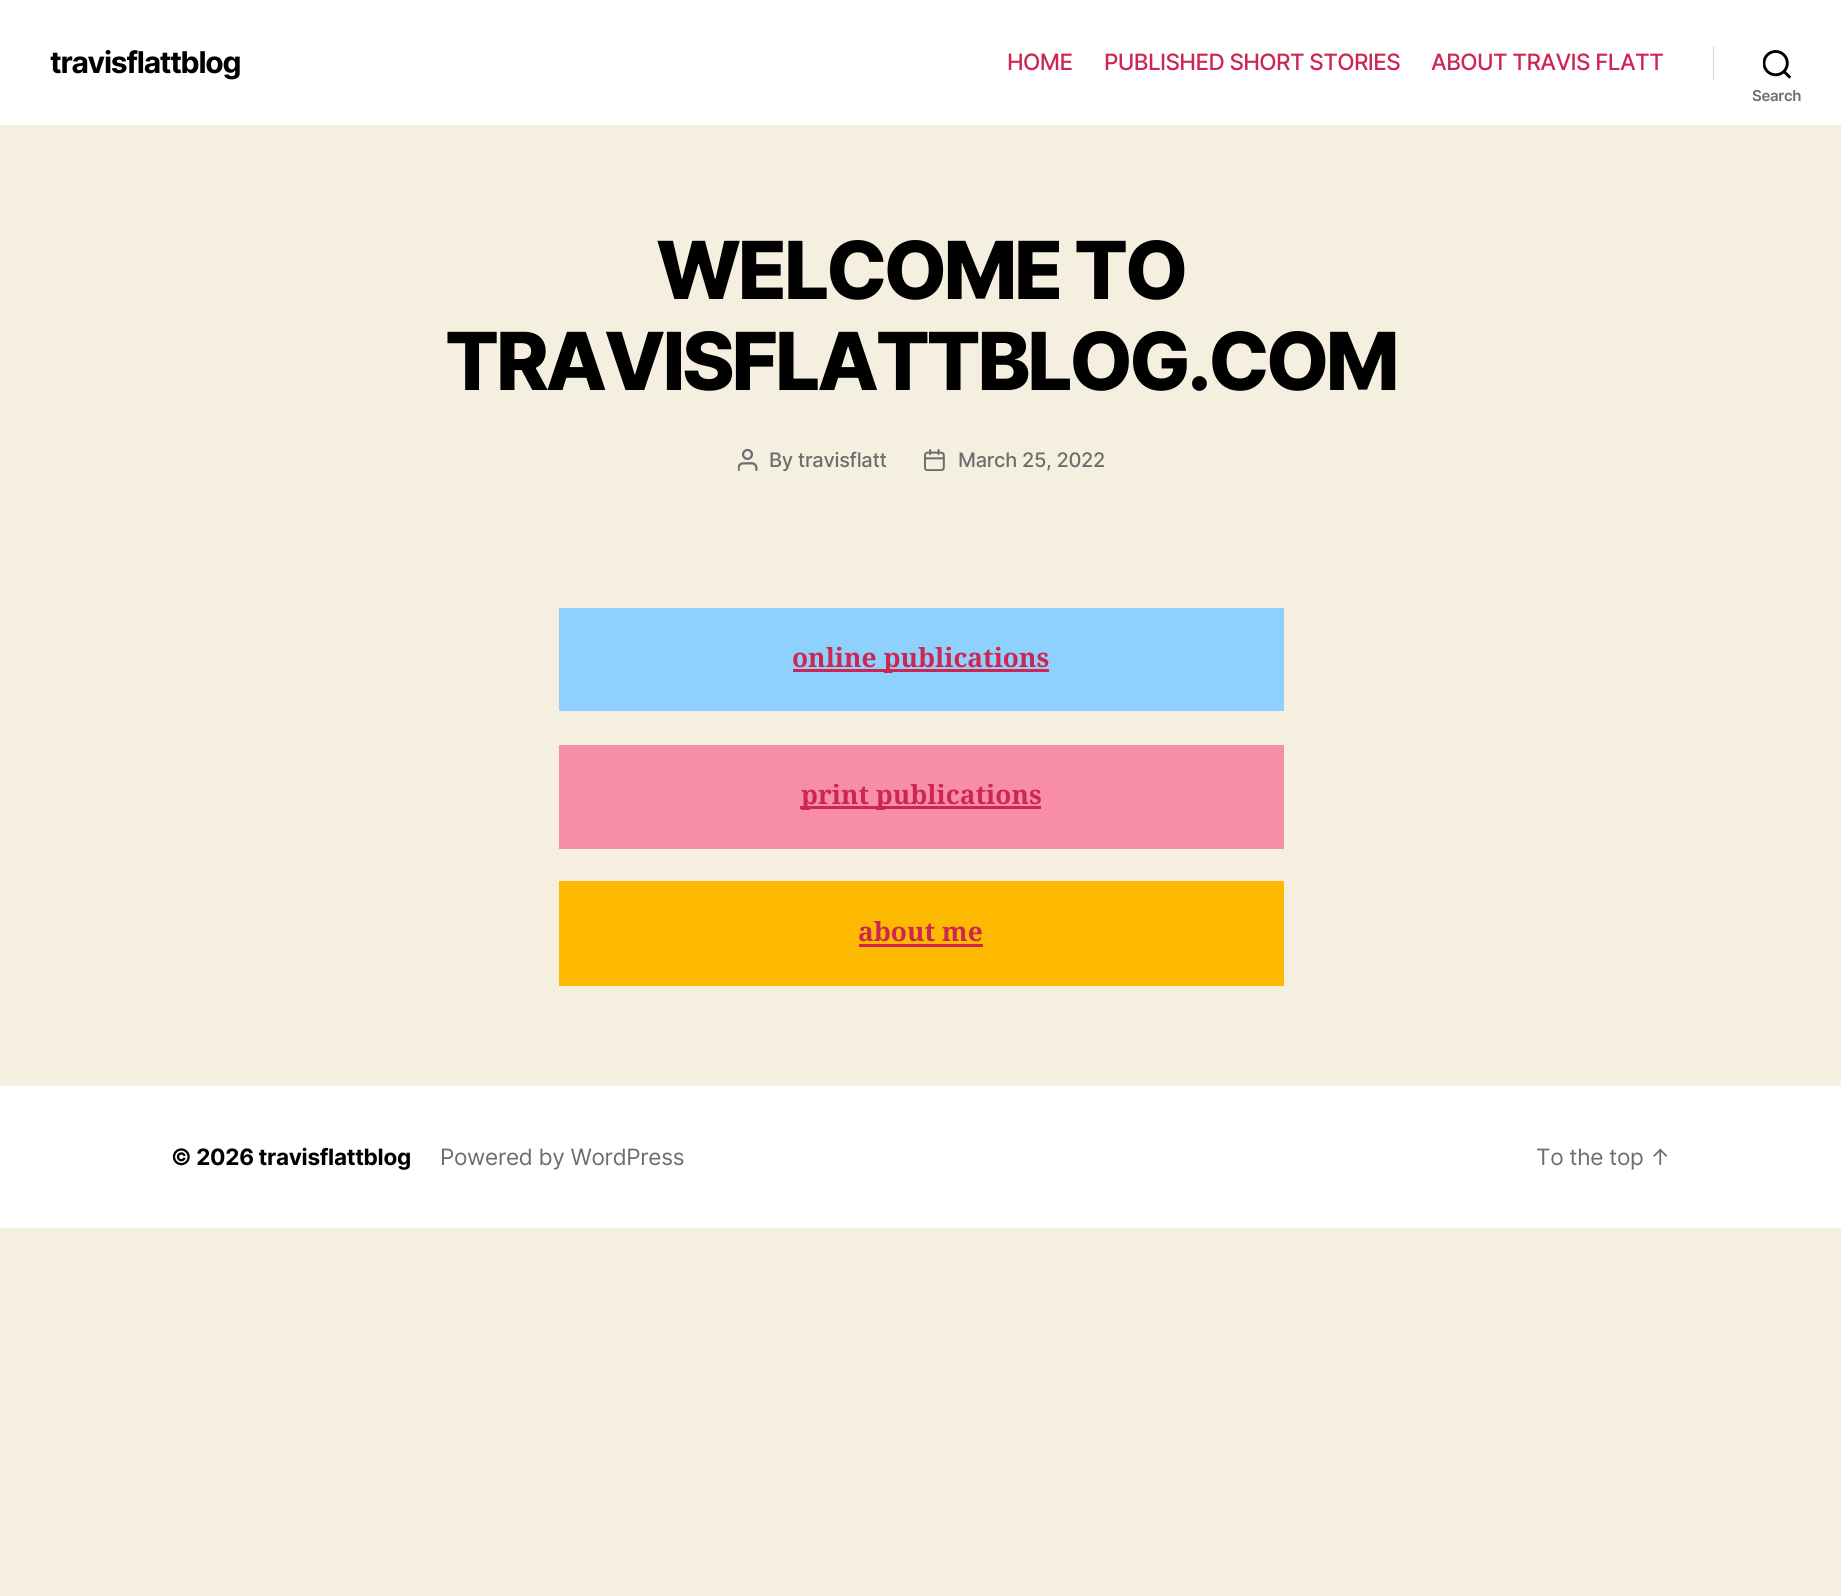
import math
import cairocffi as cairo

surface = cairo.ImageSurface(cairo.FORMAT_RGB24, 1841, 1596)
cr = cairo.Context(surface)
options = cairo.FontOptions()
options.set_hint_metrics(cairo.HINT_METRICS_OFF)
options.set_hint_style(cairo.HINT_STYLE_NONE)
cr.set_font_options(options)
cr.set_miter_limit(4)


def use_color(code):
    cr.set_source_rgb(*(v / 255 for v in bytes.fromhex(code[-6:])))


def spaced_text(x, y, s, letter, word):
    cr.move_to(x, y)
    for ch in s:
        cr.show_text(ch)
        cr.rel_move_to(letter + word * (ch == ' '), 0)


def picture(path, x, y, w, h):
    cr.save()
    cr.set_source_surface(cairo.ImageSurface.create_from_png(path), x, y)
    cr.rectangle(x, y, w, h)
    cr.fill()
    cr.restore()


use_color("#f5efe0")
cr.paint()
use_color("#ffffff")
cr.rectangle(0, 0, 1841, 125)
cr.fill()
cr.select_font_face("Inter", cairo.FONT_SLANT_NORMAL, cairo.FONT_WEIGHT_BOLD)
cr.set_font_size(30)
use_color("#000000")
spaced_text(50, 73, "travisflattblog", -1.25, 0)
cr.select_font_face("Inter Medium")
cr.set_font_size(22.5)
use_color("#cd2653")
spaced_text(1007, 70, "HOME", -0.6, 0)
spaced_text(1104, 70, "PUBLISHED SHORT STORIES", -0.6, 0)
spaced_text(1431, 70, "ABOUT TRAVIS FLATT", -0.6, 0)
use_color("#dcd7ca")
cr.rectangle(1713, 46, 1, 34)
cr.fill()
picture("img1.png", 1763, 50, 28, 29)
cr.select_font_face("Inter SemiBold")
cr.set_font_size(15)
use_color("#6d6d6d")
spaced_text(1752, 101, "Search", -0.3, 0)
cr.select_font_face("Inter ExtraBold")
cr.set_font_size(80)
use_color("#000000")
spaced_text(656, 299, "WELCOME TO", -3.3, 0)
spaced_text(445, 390, "TRAVISFLATTBLOG.COM", -3.3, 0)
picture("img2.png", 738, 449, 20, 22)
cr.select_font_face("Inter Medium")
cr.set_font_size(20)
use_color("#6d6d6d")
spaced_text(769, 467, "By travisflatt", -0.3, 0)
picture("img3.png", 924, 449, 21, 22)
spaced_text(958, 467, "March 25, 2022", -0.3, 0)
use_color("#8ed1fc")
cr.rectangle(559, 608, 725, 103)
cr.fill()
use_color("#cd2653")
cr.rectangle(793, 669, 256, 3)
cr.fill()
cr.select_font_face("Noto Serif", cairo.FONT_SLANT_NORMAL, cairo.FONT_WEIGHT_BOLD)
cr.set_font_size(26.25)
cr.move_to(792, 667)
cr.show_text("online publications")
use_color("#f78da7")
cr.rectangle(559, 745, 725, 104)
cr.fill()
use_color("#cd2653")
cr.rectangle(800, 806, 241, 3)
cr.fill()
cr.move_to(801, 804)
cr.show_text("print publications")
use_color("#fcb900")
cr.rectangle(559, 881, 725, 105)
cr.fill()
use_color("#cd2653")
cr.move_to(858, 941)
cr.show_text("about me")
cr.rectangle(859, 944, 124, 3)
cr.fill()
use_color("#ffffff")
cr.rectangle(0, 1086, 1841, 142)
cr.fill()
cr.select_font_face("Inter", cairo.FONT_SLANT_NORMAL, cairo.FONT_WEIGHT_BOLD)
cr.set_font_size(22.5)
use_color("#000000")
spaced_text(171, 1165, "© 2026 travisflattblog", -0.3, 0)
cr.select_font_face("Inter")
use_color("#6d6d6d")
spaced_text(440, 1165, "Powered by WordPress", -0.3, 0)
spaced_text(1536, 1165, "To the top ↑", -0.3, 0)
surface.write_to_png("result.png")
